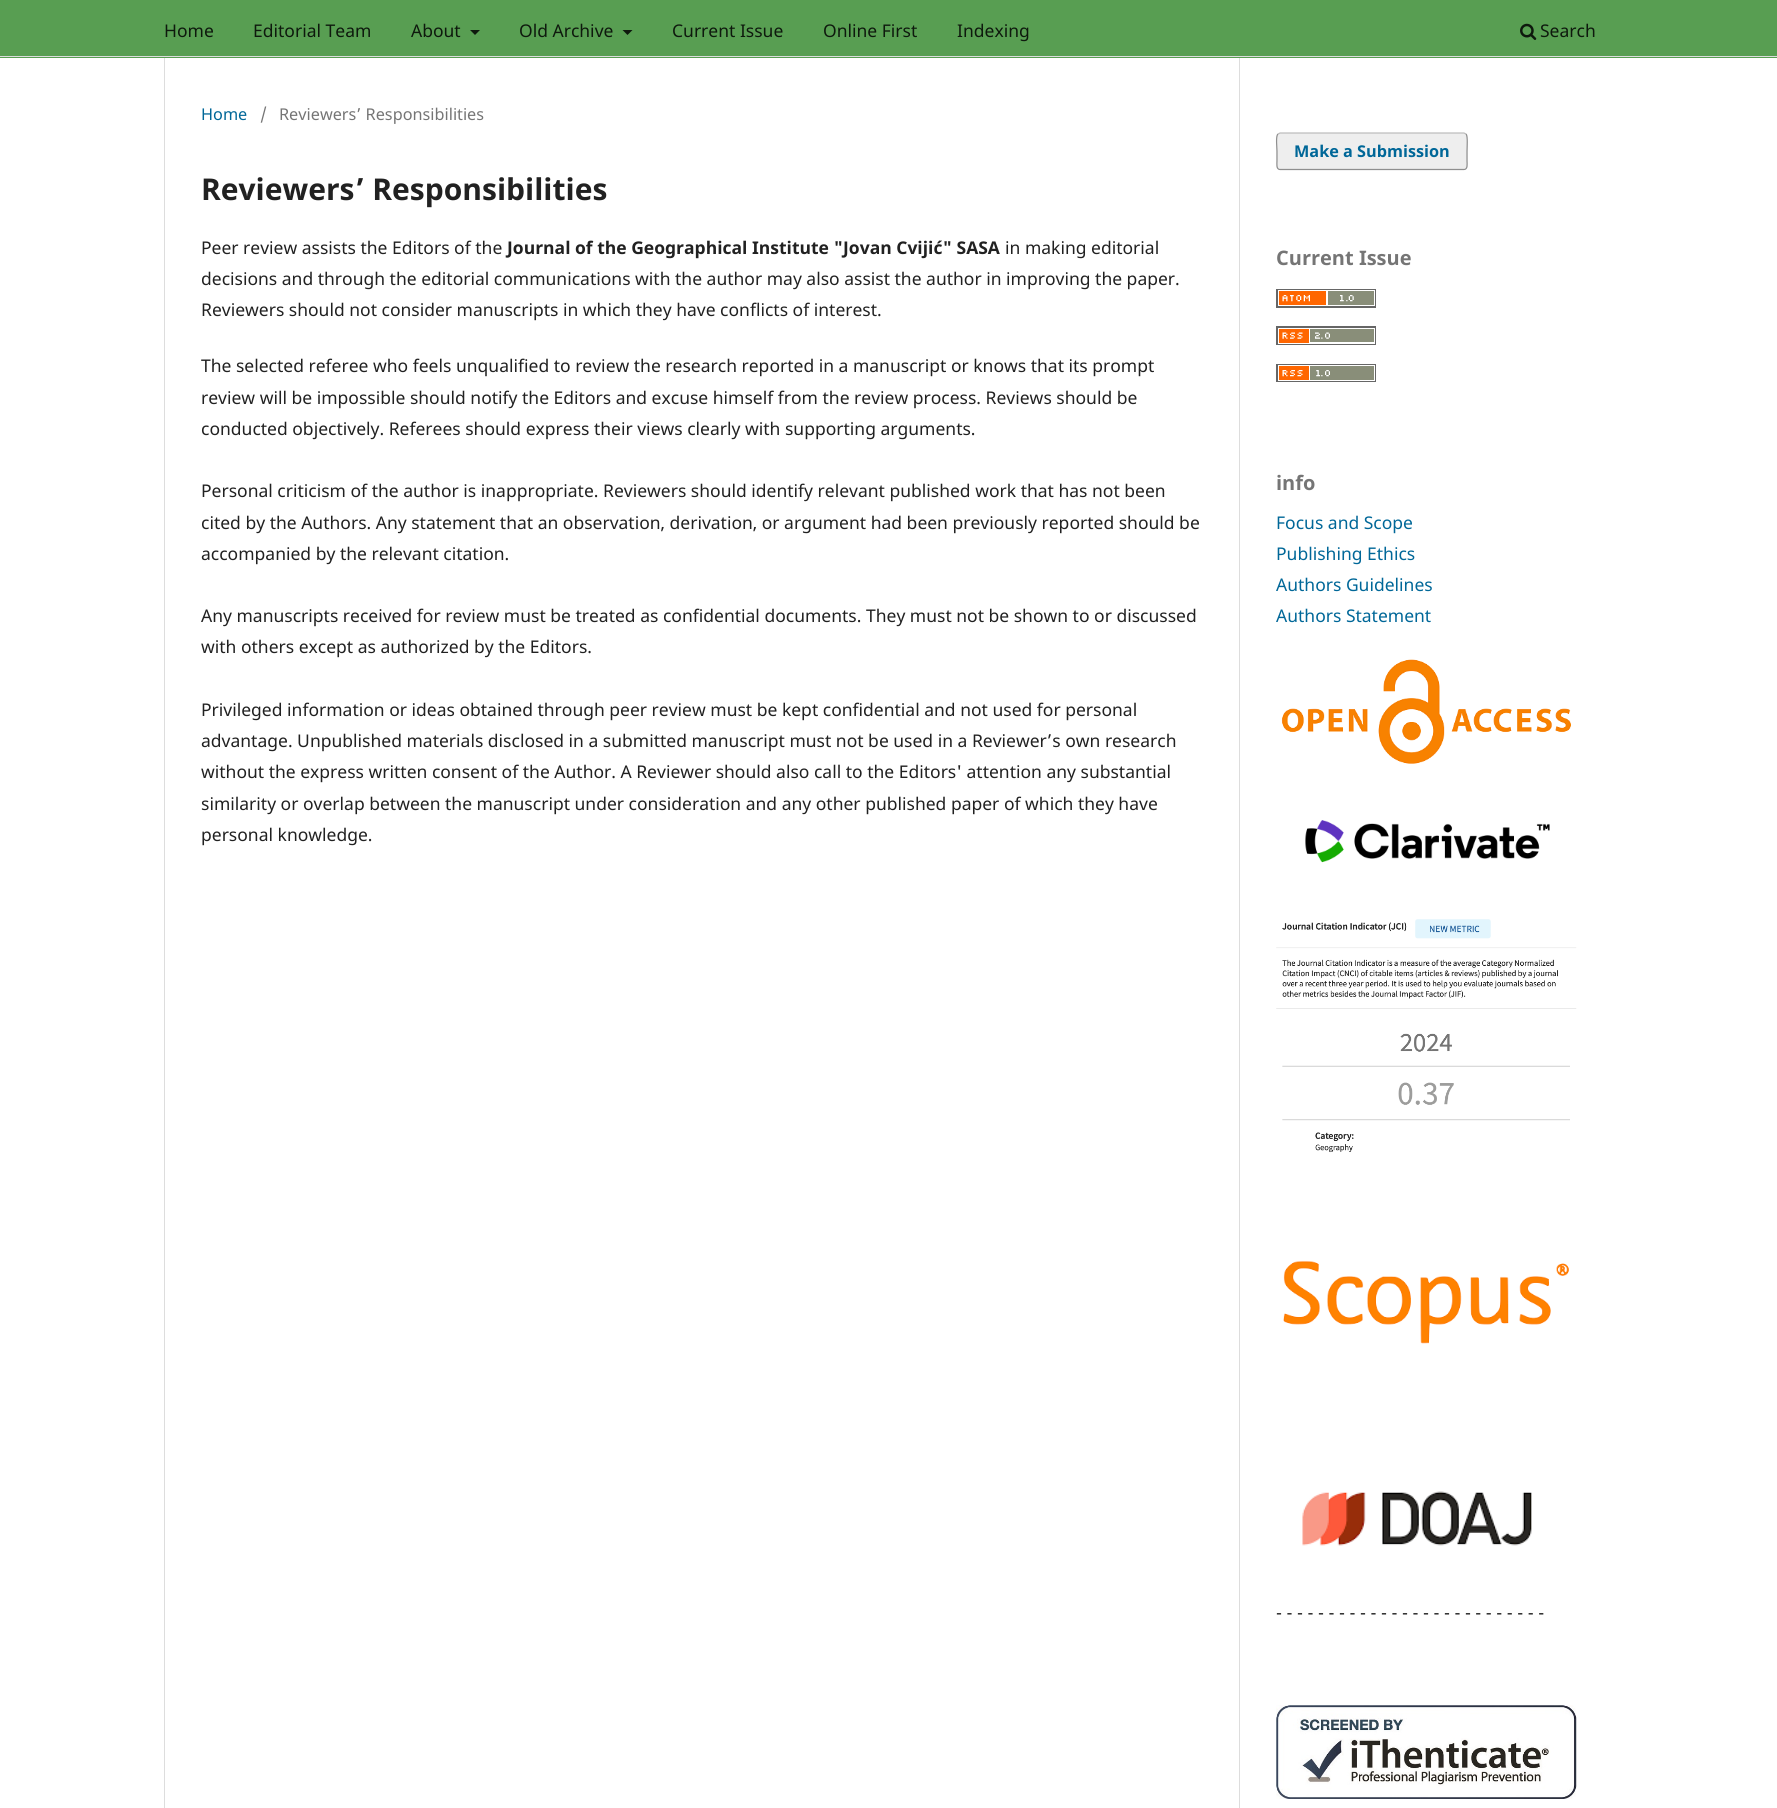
import math
import cairocffi as cairo

surface = cairo.ImageSurface(cairo.FORMAT_RGB24, 1777, 1808)
cr = cairo.Context(surface)
options = cairo.FontOptions()
options.set_hint_metrics(cairo.HINT_METRICS_OFF)
options.set_hint_style(cairo.HINT_STYLE_NONE)
cr.set_font_options(options)
cr.set_miter_limit(4)


def use_color(code):
    cr.set_source_rgb(*(v / 255 for v in bytes.fromhex(code[-6:])))


def round_rect(x, y, w, h, r):
    cr.new_sub_path()
    for i, (u, v) in enumerate([(x + w - r, y + h - r), (x + r, y + h - r), (x + r, y + r), (x + w - r, y + r)]):
        cr.arc(u, v, r, i * math.pi / 2, (i + 1) * math.pi / 2)
    cr.close_path()


def picture(path, x, y, w, h):
    cr.save()
    cr.set_source_surface(cairo.ImageSurface.create_from_png(path), x, y)
    cr.rectangle(x, y, w, h)
    cr.fill()
    cr.restore()


use_color("#ffffff")
cr.paint()
use_color("#589e52")
cr.rectangle(0, 0, 1777, 58)
cr.fill()
use_color("#dddddd")
cr.rectangle(0, 56, 1777, 1)
cr.fill()
cr.select_font_face("Noto Sans")
cr.set_font_size(17.5)
use_color("#0e190d")
cr.move_to(164, 37)
cr.show_text("Home")
cr.move_to(253, 37)
cr.show_text("Editorial Team")
cr.move_to(411, 37)
cr.show_text("About")
cr.new_path()
cr.move_to(470, 30)
cr.line_to(480, 30)
cr.line_to(475, 35)
cr.close_path()
cr.fill()
cr.move_to(519, 37)
cr.show_text("Old Archive")
cr.new_path()
cr.move_to(622.5, 30)
cr.line_to(632.5, 30)
cr.line_to(627.5, 35)
cr.close_path()
cr.fill()
cr.move_to(672, 37)
cr.show_text("Current Issue")
cr.move_to(823, 37)
cr.show_text("Online First")
cr.move_to(957, 37)
cr.show_text("Indexing")
picture("img1.png", 1520, 23, 17, 17)
cr.move_to(1540, 37)
cr.show_text("Search")
use_color("#dddddd")
cr.rectangle(164, 58, 1, 1750)
cr.fill()
cr.set_font_size(16.25)
use_color("#006798")
cr.move_to(201, 120)
cr.show_text("Home")
use_color("#757575")
cr.move_to(260, 120)
cr.show_text("/")
cr.move_to(279, 120)
cr.show_text("Reviewers’ Responsibilities")
use_color("#dddddd")
cr.rectangle(1239, 58, 1, 1750)
cr.fill()
cr.select_font_face("Noto Sans", cairo.FONT_SLANT_NORMAL, cairo.FONT_WEIGHT_BOLD)
cr.set_font_size(30)
use_color("#212121")
cr.move_to(201, 200)
cr.show_text("Reviewers’ Responsibilities")
cr.select_font_face("Noto Sans")
cr.set_font_size(17.5)
cr.move_to(201, 254)
cr.show_text("Peer review assists the Editors of the")
cr.select_font_face("Noto Sans", cairo.FONT_SLANT_NORMAL, cairo.FONT_WEIGHT_BOLD)
cr.move_to(507, 254)
cr.show_text("Journal of the Geographical Institute \"Jovan Cvijić\" SASA")
cr.select_font_face("Noto Sans")
cr.move_to(1005, 254)
cr.show_text("in making editorial")
cr.move_to(201, 285)
cr.show_text("decisions and through the editorial communications with the author may also assist the author in improving the paper.")
cr.move_to(201, 316)
cr.show_text("Reviewers should not consider manuscripts in which they have conflicts of interest.")
cr.move_to(201, 372)
cr.show_text("The selected referee who feels unqualified to review the research reported in a manuscript or knows that its prompt")
cr.move_to(201, 404)
cr.show_text("review will be impossible should notify the Editors and excuse himself from the review process. Reviews should be")
cr.move_to(201, 435)
cr.show_text("conducted objectively. Referees should express their views clearly with supporting arguments.")
cr.move_to(201, 497)
cr.show_text("Personal criticism of the author is inappropriate. Reviewers should identify relevant published work that has not been")
cr.move_to(201, 529)
cr.show_text("cited by the Authors. Any statement that an observation, derivation, or argument had been previously reported should be")
cr.move_to(201, 560)
cr.show_text("accompanied by the relevant citation.")
cr.move_to(201, 622)
cr.show_text("Any manuscripts received for review must be treated as confidential documents. They must not be shown to or discussed")
cr.move_to(201, 653)
cr.show_text("with others except as authorized by the Editors.")
cr.move_to(201, 716)
cr.show_text("Privileged information or ideas obtained through peer review must be kept confidential and not used for personal")
cr.move_to(201, 747)
cr.show_text("advantage. Unpublished materials disclosed in a submitted manuscript must not be used in a Reviewer’s own research")
cr.move_to(201, 778)
cr.show_text("without the express written consent of the Author. A Reviewer should also call to the Editors' attention any substantial")
cr.move_to(201, 810)
cr.show_text("similarity or overlap between the manuscript under consideration and any other published paper of which they have")
cr.move_to(201, 841)
cr.show_text("personal knowledge.")
use_color("#eeeeee")
round_rect(1276, 133, 192, 37, 4)
cr.fill()
cr.new_path()
cr.move_to(1278, 134)
cr.line_to(1280, 133)
cr.line_to(1464, 133)
cr.line_to(1466, 134)
use_color("#bbbbbb")
cr.set_line_width(1.2)
cr.stroke()
cr.new_path()
cr.move_to(1466, 134)
cr.curve_to(1468, 136, 1467, 148, 1467, 151)
cr.line_to(1467, 161)
cr.curve_to(1467, 163.5, 1468, 169.5, 1464, 169.5)
cr.line_to(1280, 169.5)
cr.curve_to(1276, 169.5, 1277, 163.5, 1277, 161)
cr.line_to(1277, 151)
cr.curve_to(1277, 148, 1275.5, 136, 1278, 134)
cr.set_source_rgba(0, 0, 0, 0.4)
cr.stroke()
cr.select_font_face("Noto Sans", cairo.FONT_SLANT_NORMAL, cairo.FONT_WEIGHT_BOLD)
cr.set_font_size(16.25)
use_color("#006798")
cr.move_to(1294, 157)
cr.show_text("Make a Submission")
cr.set_font_size(20)
use_color("#757575")
cr.move_to(1276, 265)
cr.show_text("Current Issue")
picture("img2.png", 1276, 289, 100, 19)
picture("img3.png", 1276, 326, 100, 19)
picture("img4.png", 1276, 364, 100, 18)
cr.move_to(1276, 490)
cr.show_text("info")
cr.select_font_face("Noto Sans")
cr.set_font_size(17.5)
use_color("#006798")
cr.move_to(1276, 529)
cr.show_text("Focus and Scope")
cr.move_to(1276, 560)
cr.show_text("Publishing Ethics")
cr.move_to(1276, 591)
cr.show_text("Authors Guidelines")
cr.move_to(1276, 622)
cr.show_text("Authors Statement")
picture("img5.png", 1281, 659, 290, 105)
picture("img6.png", 1305, 820, 245, 43)
picture("img7.png", 1276, 919, 301, 234)
picture("img8.png", 1283, 1260, 286, 84)
picture("img9.png", 1302, 1491, 230, 55)
use_color("#212121")
cr.move_to(1276, 1619)
cr.show_text("- - - - - - - - - - - - - - - - - - - - - - - - - -")
picture("img10.png", 1276, 1705, 301, 94)
surface.write_to_png("result.png")
